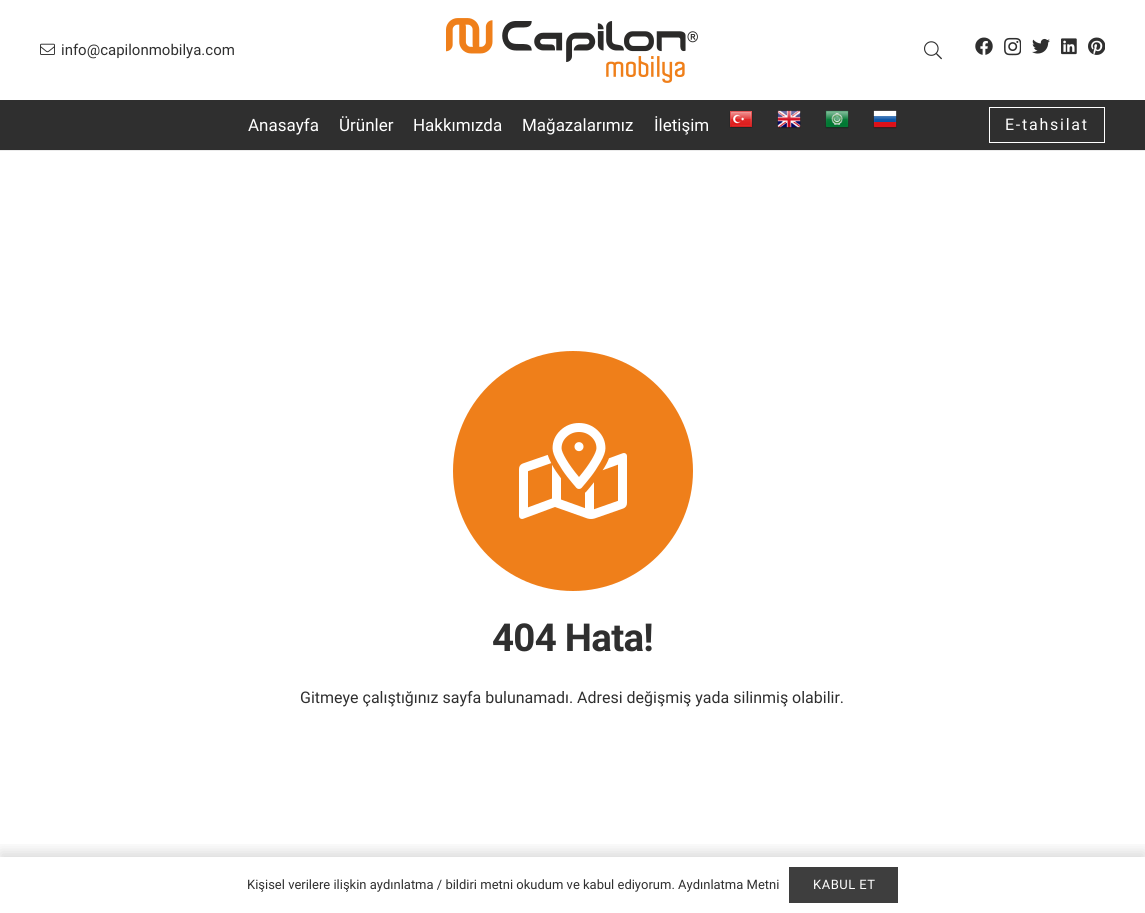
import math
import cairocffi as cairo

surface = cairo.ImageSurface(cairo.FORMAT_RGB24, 1145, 913)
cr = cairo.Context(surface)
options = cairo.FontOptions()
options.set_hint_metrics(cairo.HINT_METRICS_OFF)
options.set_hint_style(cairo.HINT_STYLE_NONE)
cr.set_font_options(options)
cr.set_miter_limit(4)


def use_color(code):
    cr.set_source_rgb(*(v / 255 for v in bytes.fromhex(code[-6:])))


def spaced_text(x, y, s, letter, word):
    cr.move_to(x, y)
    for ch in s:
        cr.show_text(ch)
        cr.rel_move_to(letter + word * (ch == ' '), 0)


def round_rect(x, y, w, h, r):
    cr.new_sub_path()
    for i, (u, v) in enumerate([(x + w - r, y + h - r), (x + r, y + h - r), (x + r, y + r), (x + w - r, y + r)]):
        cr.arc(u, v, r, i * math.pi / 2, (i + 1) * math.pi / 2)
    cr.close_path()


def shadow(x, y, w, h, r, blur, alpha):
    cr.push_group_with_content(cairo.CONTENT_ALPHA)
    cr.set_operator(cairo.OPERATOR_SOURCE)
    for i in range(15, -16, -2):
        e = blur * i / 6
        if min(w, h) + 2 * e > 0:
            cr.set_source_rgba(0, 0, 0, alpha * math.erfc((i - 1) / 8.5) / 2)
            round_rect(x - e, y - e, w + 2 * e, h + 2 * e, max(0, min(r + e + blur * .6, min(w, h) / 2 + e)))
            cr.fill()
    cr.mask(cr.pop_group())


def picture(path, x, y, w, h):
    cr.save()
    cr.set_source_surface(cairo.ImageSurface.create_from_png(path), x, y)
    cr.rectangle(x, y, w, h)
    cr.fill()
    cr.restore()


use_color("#ffffff")
cr.paint()
picture("img1.png", 40, 43, 15, 12)
cr.select_font_face("Roboto")
cr.set_font_size(15)
use_color("#2f2f2f")
cr.move_to(61, 55)
cr.show_text("info@capilonmobilya.com")
picture("img2.png", 446, 18, 252, 65)
picture("img3.png", 924, 41, 18, 19)
picture("img4.png", 975, 37, 18, 18)
picture("img5.png", 1004, 37, 17, 19)
picture("img6.png", 1032, 38, 18, 16)
picture("img7.png", 1061, 38, 16, 17)
picture("img8.png", 1088, 37, 17, 18)
use_color("#ebebeb")
cr.rectangle(0, 150, 1145, 1)
cr.fill()
use_color("#2f2f2f")
cr.rectangle(0, 100, 1145, 50)
cr.fill()
cr.set_font_size(17)
use_color("#ffffff")
cr.move_to(248, 131)
cr.show_text("Anasayfa")
cr.move_to(339, 131)
cr.show_text("Ürünler")
cr.move_to(413, 131)
cr.show_text("Hakkımızda")
cr.move_to(522, 131)
cr.show_text("Mağazalarımız")
cr.move_to(654, 131)
cr.show_text("İletişim")
picture("img9.png", 729, 111, 24, 17)
picture("img10.png", 777, 110, 24, 19)
picture("img11.png", 825, 110, 24, 19)
picture("img12.png", 873, 110, 24, 19)
cr.rectangle(989.5, 107.5, 115, 35)
cr.set_line_width(1)
cr.stroke()
cr.set_font_size(16)
spaced_text(1005, 130, "E-tahsilat", 1.75, 0)
use_color("#ef7f1a")
cr.new_path()
cr.arc(573, 471, 120, 0, 2 * math.pi)
cr.fill()
picture("img13.png", 519, 423, 108, 96)
cr.select_font_face("Roboto", cairo.FONT_SLANT_NORMAL, cairo.FONT_WEIGHT_BOLD)
cr.set_font_size(38.5)
use_color("#2f2f2f")
spaced_text(492, 651, "404 Hata!", -0.75, 0)
cr.select_font_face("Roboto")
cr.set_font_size(16)
cr.move_to(300, 703)
cr.show_text("Gitmeye çalıştığınız sayfa bulunamadı. Adresi değişmiş yada silinmiş olabilir.")
cr.save()
cr.rectangle(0, 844, 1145, 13)
cr.clip()
use_color("#000000")
shadow(0, 852, 1145, 56, 0, 7.5, 0.15)
cr.restore()
cr.set_font_size(13)
cr.move_to(247, 889)
cr.show_text("Kişisel verilere ilişkin aydınlatma / bildiri metni okudum ve kabul ediyorum. Aydınlatma Metni")
use_color("#3e3e3e")
cr.rectangle(789, 867, 109, 36)
cr.fill()
use_color("#ffffff")
spaced_text(813, 889, "KABUL ET", 0.5, 0)
surface.write_to_png("result.png")
